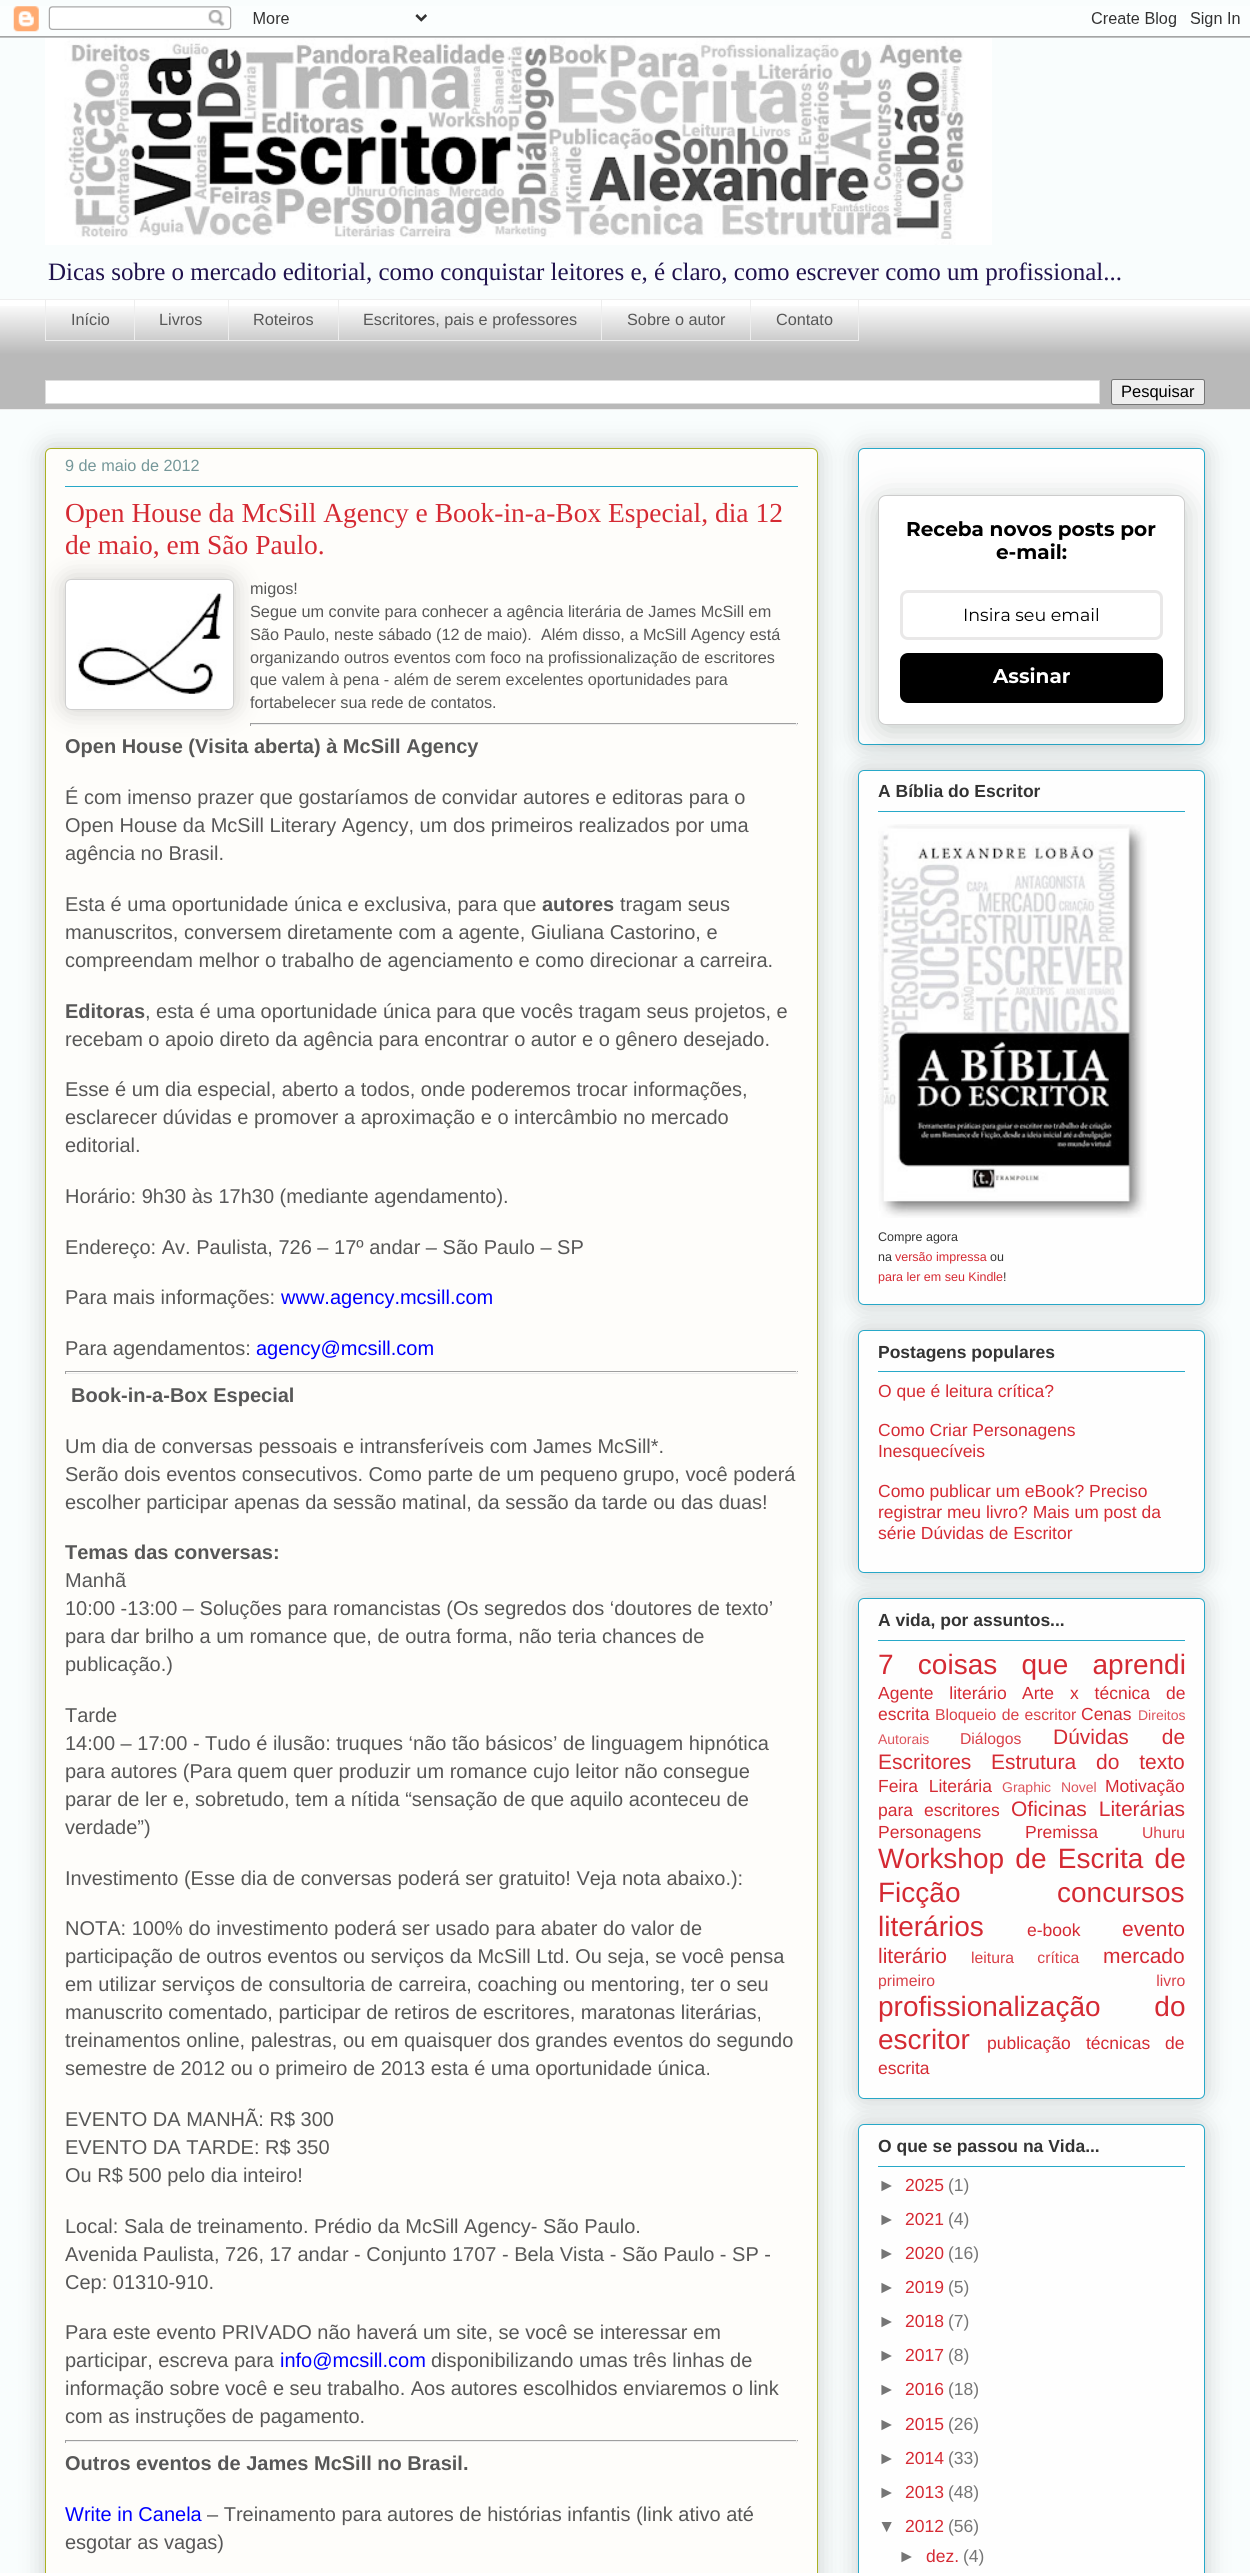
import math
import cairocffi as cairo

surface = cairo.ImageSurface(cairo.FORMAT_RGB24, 1250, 2573)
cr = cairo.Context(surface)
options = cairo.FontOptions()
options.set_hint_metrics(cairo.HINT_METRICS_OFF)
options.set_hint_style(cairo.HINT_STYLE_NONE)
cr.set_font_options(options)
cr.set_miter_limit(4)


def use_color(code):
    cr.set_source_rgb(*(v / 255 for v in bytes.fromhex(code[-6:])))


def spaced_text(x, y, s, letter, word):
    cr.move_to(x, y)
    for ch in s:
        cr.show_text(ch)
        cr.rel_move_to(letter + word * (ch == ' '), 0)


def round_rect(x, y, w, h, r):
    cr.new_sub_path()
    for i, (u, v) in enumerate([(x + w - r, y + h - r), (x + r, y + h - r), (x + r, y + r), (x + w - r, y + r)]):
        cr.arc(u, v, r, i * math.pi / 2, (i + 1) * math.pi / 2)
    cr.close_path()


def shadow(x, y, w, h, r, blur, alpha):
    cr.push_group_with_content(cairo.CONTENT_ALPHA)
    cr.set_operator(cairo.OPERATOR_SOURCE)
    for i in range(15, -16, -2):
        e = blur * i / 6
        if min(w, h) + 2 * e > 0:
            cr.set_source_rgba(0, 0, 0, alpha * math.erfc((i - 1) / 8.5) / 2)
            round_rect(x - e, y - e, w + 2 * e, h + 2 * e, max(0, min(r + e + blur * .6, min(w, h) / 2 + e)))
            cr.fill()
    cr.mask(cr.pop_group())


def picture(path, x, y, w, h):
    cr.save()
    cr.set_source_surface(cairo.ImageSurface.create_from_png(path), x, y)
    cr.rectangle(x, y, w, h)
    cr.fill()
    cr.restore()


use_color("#f9fdfd")
cr.paint()
picture("img1.png", 0, 6, 1250, 32)
picture("img2.png", 45, 38, 947, 207)
cr.select_font_face("Liberation Serif")
cr.set_font_size(25)
use_color("#20124d")
cr.move_to(48, 280)
cr.show_text("Dicas sobre o mercado editorial, como conquistar leitores e, é claro, como escrever como um profissional...")
use_color("#ffffff")
cr.rectangle(0, 300, 1250, 109)
cr.fill()
picture("img3.png", 0, 306, 1250, 103)
use_color("#eeeeee")
cr.rectangle(0, 299, 1250, 1)
cr.fill()
cr.rectangle(45, 340, 705, 1)
cr.fill()
cr.rectangle(45, 299, 1, 42)
cr.fill()
cr.select_font_face("Liberation Sans")
cr.set_font_size(16.25)
use_color("#575757")
cr.move_to(71, 325)
cr.show_text("Início")
use_color("#eeeeee")
cr.rectangle(134, 299, 1, 42)
cr.fill()
use_color("#575757")
cr.move_to(159, 325)
cr.show_text("Livros")
use_color("#eeeeee")
cr.rectangle(228, 299, 1, 42)
cr.fill()
use_color("#575757")
cr.move_to(253, 325)
cr.show_text("Roteiros")
use_color("#eeeeee")
cr.rectangle(338, 299, 1, 42)
cr.fill()
use_color("#575757")
cr.move_to(363, 325)
cr.show_text("Escritores, pais e professores")
use_color("#eeeeee")
cr.rectangle(601, 299, 1, 42)
cr.fill()
use_color("#575757")
cr.move_to(627, 325)
cr.show_text("Sobre o autor")
cr.rectangle(750.5, 299.5, 108, 41)
use_color("#eeeeee")
cr.set_line_width(1)
cr.stroke()
use_color("#575757")
cr.move_to(776, 325)
cr.show_text("Contato")
use_color("#ffffff")
cr.rectangle(45.5, 380.5, 1054, 23)
cr.fill_preserve()
use_color("#dddddd")
cr.stroke()
use_color("#efefef")
round_rect(1111.5, 379.5, 93, 25, 2)
cr.fill_preserve()
use_color("#767676")
cr.stroke()
cr.set_font_size(16.5)
use_color("#000000")
cr.move_to(1121, 397)
cr.show_text("Pesquisar")
use_color("#eeeeee")
cr.rectangle(0, 409, 1250, 1)
cr.fill()
use_color("#000000")
shadow(45, 448, 773, 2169, 6, 12.5, 0.2)
use_color("#fefdfa")
round_rect(45.5, 448.5, 772, 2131, 5.5)
cr.fill_preserve()
use_color("#aab123")
cr.stroke()
cr.set_font_size(16.25)
use_color("#759799")
cr.move_to(65, 471)
cr.show_text("9 de maio de 2012")
use_color("#27a8c8")
cr.rectangle(65, 486, 733, 1)
cr.fill()
cr.select_font_face("Liberation Serif")
cr.set_font_size(27.5)
use_color("#d52a33")
cr.move_to(65, 522)
cr.show_text("Open House da McSill Agency e Book-in-a-Box Especial, dia 12")
cr.move_to(65, 554)
cr.show_text("de maio, em São Paulo.")
use_color("#9f9f9f")
cr.rectangle(250, 723, 548, 1)
cr.fill()
use_color("#eeeeee")
cr.rectangle(796, 723, 1, 3)
cr.fill()
cr.rectangle(250, 724, 548, 1)
cr.fill()
use_color("#9f9f9f")
cr.rectangle(250, 723, 1, 3)
cr.fill()
use_color("#000000")
shadow(65, 579, 169, 131, 6, 12.5, 0.2)
use_color("#ffffff")
round_rect(65.5, 579.5, 168, 130, 5.5)
cr.fill_preserve()
use_color("#d0d0d0")
cr.stroke()
picture("img4.png", 78, 593, 144, 101)
cr.select_font_face("Liberation Sans")
cr.set_font_size(16.25)
use_color("#575757")
cr.move_to(250, 594)
cr.show_text("migos!")
cr.move_to(250, 617)
cr.show_text("Segue um convite para conhecer a agência literária de James McSill em")
cr.move_to(250, 640)
cr.show_text("São Paulo, neste sábado (12 de maio).  Além disso, a McSill Agency está")
cr.move_to(250, 663)
cr.show_text("organizando outros eventos com foco na profissionalização de escritores")
cr.move_to(250, 685)
cr.show_text("que valem à pena - além de serem excelentes oportunidades para")
cr.move_to(250, 708)
cr.show_text("fortabelecer sua rede de contatos.")
cr.select_font_face("Liberation Sans", cairo.FONT_SLANT_NORMAL, cairo.FONT_WEIGHT_BOLD)
cr.set_font_size(20)
cr.move_to(65, 753)
cr.show_text("Open House (Visita aberta) à McSill Agency")
cr.select_font_face("Liberation Sans")
cr.move_to(65, 804)
cr.show_text("É com imenso prazer que gostaríamos de convidar autores e editoras para o")
cr.move_to(65, 832)
cr.show_text("Open House da McSill Literary Agency, um dos primeiros realizados por uma")
cr.move_to(65, 860)
cr.show_text("agência no Brasil.")
cr.move_to(65, 911)
cr.show_text("Esta é uma oportunidade única e exclusiva, para que")
cr.select_font_face("Liberation Sans", cairo.FONT_SLANT_NORMAL, cairo.FONT_WEIGHT_BOLD)
cr.move_to(542, 911)
cr.show_text("autores")
cr.select_font_face("Liberation Sans")
cr.move_to(620, 911)
cr.show_text("tragam seus")
cr.move_to(65, 939)
cr.show_text("manuscritos, conversem diretamente com a agente, Giuliana Castorino, e")
cr.move_to(65, 967)
cr.show_text("compreendam melhor o trabalho de agenciamento e como direcionar a carreira.")
cr.select_font_face("Liberation Sans", cairo.FONT_SLANT_NORMAL, cairo.FONT_WEIGHT_BOLD)
cr.move_to(65, 1018)
cr.show_text("Editoras")
cr.select_font_face("Liberation Sans")
cr.move_to(145, 1018)
cr.show_text(", esta é uma oportunidade única para que vocês tragam seus projetos, e")
cr.move_to(65, 1046)
cr.show_text("recebam o apoio direto da agência para encontrar o autor e o gênero desejado.")
cr.move_to(65, 1096)
cr.show_text("Esse é um dia especial, aberto a todos, onde poderemos trocar informações,")
cr.move_to(65, 1124)
cr.show_text("esclarecer dúvidas e promover a aproximação e o intercâmbio no mercado")
cr.move_to(65, 1152)
cr.show_text("editorial.")
cr.move_to(65, 1203)
cr.show_text("Horário: 9h30 às 17h30 (mediante agendamento).")
cr.move_to(65, 1254)
cr.show_text("Endereço: Av. Paulista, 726 – 17º andar – São Paulo – SP")
cr.move_to(65, 1304)
cr.show_text("Para mais informações:")
use_color("#0000ff")
cr.move_to(281, 1304)
cr.show_text("www.agency.mcsill.com")
use_color("#575757")
cr.move_to(65, 1355)
cr.show_text("Para agendamentos:")
use_color("#0000ff")
cr.move_to(256, 1355)
cr.show_text("agency@mcsill.com")
use_color("#9f9f9f")
cr.rectangle(65, 1371, 733, 1)
cr.fill()
use_color("#eeeeee")
cr.rectangle(796, 1371, 1, 3)
cr.fill()
cr.rectangle(65, 1373, 733, 1)
cr.fill()
use_color("#9f9f9f")
cr.rectangle(65, 1371, 1, 3)
cr.fill()
cr.select_font_face("Liberation Sans", cairo.FONT_SLANT_NORMAL, cairo.FONT_WEIGHT_BOLD)
use_color("#575757")
cr.move_to(71, 1402)
cr.show_text("Book-in-a-Box Especial")
cr.select_font_face("Liberation Sans")
cr.move_to(65, 1453)
cr.show_text("Um dia de conversas pessoais e intransferíveis com James McSill*.")
cr.move_to(65, 1481)
cr.show_text("Serão dois eventos consecutivos. Como parte de um pequeno grupo, você poderá")
cr.move_to(65, 1509)
cr.show_text("escolher participar apenas da sessão matinal, da sessão da tarde ou das duas!")
cr.select_font_face("Liberation Sans", cairo.FONT_SLANT_NORMAL, cairo.FONT_WEIGHT_BOLD)
cr.move_to(65, 1559)
cr.show_text("Temas das conversas:")
cr.select_font_face("Liberation Sans")
cr.move_to(65, 1587)
cr.show_text("Manhã")
cr.move_to(65, 1615)
cr.show_text("10:00 -13:00 – Soluções para romancistas (Os segredos dos ‘doutores de texto’")
cr.move_to(65, 1643)
cr.show_text("para dar brilho a um romance que, de outra forma, não teria chances de")
cr.move_to(65, 1671)
cr.show_text("publicação.)")
cr.move_to(65, 1722)
cr.show_text("Tarde")
cr.move_to(65, 1750)
cr.show_text("14:00 – 17:00 - Tudo é ilusão: truques ‘não tão básicos’ de linguagem hipnótica")
cr.move_to(65, 1778)
cr.show_text("para autores (Para quem quer produzir um romance cujo leitor não consegue")
cr.move_to(65, 1806)
cr.show_text("parar de ler e, sobretudo, tem a nítida “sensação de que aquilo aconteceu de")
cr.move_to(65, 1834)
cr.show_text("verdade”)")
cr.move_to(65, 1885)
cr.show_text("Investimento (Esse dia de conversas poderá ser gratuito! Veja nota abaixo.):")
cr.move_to(65, 1935)
cr.show_text("NOTA: 100% do investimento poderá ser usado para abater do valor de")
cr.move_to(65, 1963)
cr.show_text("participação de outros eventos ou serviços da McSill Ltd. Ou seja, se você pensa")
cr.move_to(65, 1991)
cr.show_text("em utilizar serviços de consultoria de carreira, coaching ou mentoring, ter o seu")
cr.move_to(65, 2019)
cr.show_text("manuscrito comentado, participar de retiros de escritores, maratonas literárias,")
cr.move_to(65, 2047)
cr.show_text("treinamentos online, palestras, ou em quaisquer dos grandes eventos do segundo")
cr.move_to(65, 2075)
cr.show_text("semestre de 2012 ou o primeiro de 2013 esta é uma oportunidade única.")
cr.move_to(65, 2126)
cr.show_text("EVENTO DA MANHÃ: R$ 300")
cr.move_to(65, 2154)
cr.show_text("EVENTO DA TARDE: R$ 350")
cr.move_to(65, 2182)
cr.show_text("Ou R$ 500 pelo dia inteiro!")
cr.move_to(65, 2233)
cr.show_text("Local: Sala de treinamento. Prédio da McSill Agency- São Paulo.")
cr.move_to(65, 2261)
cr.show_text("Avenida Paulista, 726, 17 andar - Conjunto 1707 - Bela Vista - São Paulo - SP -")
cr.move_to(65, 2289)
cr.show_text("Cep: 01310-910.")
cr.move_to(65, 2339)
cr.show_text("Para este evento PRIVADO não haverá um site, se você se interessar em")
cr.move_to(65, 2367)
cr.show_text("participar, escreva para")
use_color("#0000ff")
cr.move_to(280, 2367)
cr.show_text("info@mcsill.com")
use_color("#575757")
cr.move_to(431, 2367)
cr.show_text("disponibilizando umas três linhas de")
cr.move_to(65, 2395)
cr.show_text("informação sobre você e seu trabalho. Aos autores escolhidos enviaremos o link")
cr.move_to(65, 2423)
cr.show_text("com as instruções de pagamento.")
use_color("#9f9f9f")
cr.rectangle(65, 2440, 733, 1)
cr.fill()
use_color("#eeeeee")
cr.rectangle(796, 2440, 1, 3)
cr.fill()
cr.rectangle(65, 2441, 733, 1)
cr.fill()
use_color("#9f9f9f")
cr.rectangle(65, 2440, 1, 3)
cr.fill()
cr.select_font_face("Liberation Sans", cairo.FONT_SLANT_NORMAL, cairo.FONT_WEIGHT_BOLD)
use_color("#575757")
cr.move_to(65, 2470)
cr.show_text("Outros eventos de James McSill no Brasil.")
cr.select_font_face("Liberation Sans")
use_color("#0000ff")
cr.move_to(65, 2521)
cr.show_text("Write in Canela")
use_color("#575757")
cr.move_to(207, 2521)
cr.show_text("– Treinamento para autores de histórias infantis (link ativo até")
cr.move_to(65, 2549)
cr.show_text("esgotar as vagas)")
use_color("#000000")
shadow(858, 448, 347, 297, 6, 12.5, 0.2)
use_color("#fefefe")
round_rect(858.5, 448.5, 346, 296, 5.5)
cr.fill_preserve()
use_color("#27a8c8")
cr.stroke()
use_color("#223c2f")
shadow(878, 501, 307, 230, 8, 15.5, 0.25)
use_color("#ffffff")
round_rect(878.5, 495.5, 306, 229, 7.5)
cr.fill_preserve()
use_color("#cccccc")
cr.stroke()
cr.select_font_face("Montserrat Thin")
use_color("#000000")
cr.move_to(906, 536)
cr.show_text("Receba novos posts por")
cr.move_to(996, 559)
cr.show_text("e-mail:")
round_rect(901.5, 591.5, 260, 47, 6.5)
use_color("#e9e8e8")
cr.set_line_width(3)
cr.stroke()
cr.select_font_face("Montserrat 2 Thin")
cr.set_font_size(17.5)
use_color("#000000")
cr.move_to(963, 621)
cr.show_text("Insira seu email")
round_rect(900, 653, 263, 50, 8)
cr.fill()
cr.select_font_face("Montserrat Thin")
cr.set_font_size(20)
use_color("#ffffff")
cr.move_to(993, 683)
cr.show_text("Assinar")
use_color("#000000")
shadow(858, 770, 347, 535, 6, 12.5, 0.2)
use_color("#fefefe")
round_rect(858.5, 770.5, 346, 534, 5.5)
cr.fill_preserve()
use_color("#27a8c8")
cr.set_line_width(1)
cr.stroke()
cr.select_font_face("Liberation Sans", cairo.FONT_SLANT_NORMAL, cairo.FONT_WEIGHT_BOLD)
cr.set_font_size(17.5)
use_color("#333333")
cr.move_to(878, 797)
cr.show_text("A Bíblia do Escritor")
use_color("#27a8c8")
cr.rectangle(878, 811, 307, 1)
cr.fill()
picture("img5.png", 878, 824, 269, 394)
cr.select_font_face("Liberation Sans")
cr.set_font_size(12.5)
use_color("#333333")
cr.move_to(878, 1241)
cr.show_text("Compre agora")
cr.move_to(878, 1261)
cr.show_text("na")
use_color("#d52a33")
cr.move_to(895, 1261)
cr.show_text("versão impressa")
use_color("#333333")
cr.move_to(990, 1261)
cr.show_text("ou")
use_color("#d52a33")
cr.move_to(878, 1281)
cr.show_text("para ler em seu Kindle")
use_color("#333333")
cr.move_to(1003, 1281)
cr.show_text("!")
use_color("#000000")
shadow(858, 1330, 347, 243, 6, 12.5, 0.2)
use_color("#fefefe")
round_rect(858.5, 1330.5, 346, 242, 5.5)
cr.fill_preserve()
use_color("#27a8c8")
cr.stroke()
cr.select_font_face("Liberation Sans", cairo.FONT_SLANT_NORMAL, cairo.FONT_WEIGHT_BOLD)
cr.set_font_size(17.5)
use_color("#333333")
cr.move_to(878, 1358)
cr.show_text("Postagens populares")
use_color("#27a8c8")
cr.rectangle(878, 1371, 307, 1)
cr.fill()
cr.select_font_face("Liberation Sans")
use_color("#d52a33")
cr.move_to(878, 1397)
cr.show_text("O que é leitura crítica?")
cr.move_to(878, 1436)
cr.show_text("Como Criar Personagens")
cr.move_to(878, 1457)
cr.show_text("Inesquecíveis")
cr.move_to(878, 1497)
cr.show_text("Como publicar um eBook? Preciso")
cr.move_to(878, 1518)
cr.show_text("registrar meu livro? Mais um post da")
cr.move_to(878, 1539)
cr.show_text("série Dúvidas de Escritor")
use_color("#000000")
shadow(858, 1598, 347, 501, 6, 12.5, 0.2)
use_color("#fefefe")
round_rect(858.5, 1598.5, 346, 500, 5.5)
cr.fill_preserve()
use_color("#27a8c8")
cr.stroke()
cr.select_font_face("Liberation Sans", cairo.FONT_SLANT_NORMAL, cairo.FONT_WEIGHT_BOLD)
use_color("#333333")
cr.move_to(878, 1626)
cr.show_text("A vida, por assuntos...")
use_color("#27a8c8")
cr.rectangle(878, 1640, 307, 1)
cr.fill()
cr.select_font_face("Liberation Sans")
cr.set_font_size(28)
use_color("#d52a33")
spaced_text(878, 1674, "7 coisas que aprendi", 0, 16.5)
cr.set_font_size(17.5)
spaced_text(878, 1699, "Agente literário", 0, 11)
spaced_text(1022, 1699, "Arte x técnica de", 0, 11)
cr.move_to(878, 1720)
cr.show_text("escrita")
cr.set_font_size(15.75)
use_color("#d93f47")
spaced_text(935, 1720, "Bloqueio de escritor", 0, 1)
cr.set_font_size(17.5)
use_color("#d52a33")
cr.move_to(1081, 1720)
cr.show_text("Cenas")
cr.set_font_size(14)
use_color("#dd545c")
cr.move_to(1138, 1720)
cr.show_text("Direitos")
cr.move_to(878, 1744)
cr.show_text("Autorais")
cr.set_font_size(15.75)
use_color("#d93f47")
cr.move_to(960, 1744)
cr.show_text("Diálogos")
cr.set_font_size(21)
use_color("#d52a33")
spaced_text(1053, 1744, "Dúvidas de", 0, 27)
cr.move_to(878, 1769)
cr.show_text("Escritores")
spaced_text(991, 1769, "Estrutura do texto", 0, 14)
cr.set_font_size(17.5)
spaced_text(878, 1792, "Feira Literária", 0, 6)
cr.set_font_size(14)
use_color("#dd545c")
spaced_text(1002, 1792, "Graphic Novel", 0, 6)
cr.set_font_size(17.5)
use_color("#d52a33")
cr.move_to(1105, 1792)
cr.show_text("Motivação")
spaced_text(878, 1816, "para escritores", 0, 6)
cr.set_font_size(21)
spaced_text(1011, 1816, "Oficinas Literárias", 0, 6)
cr.set_font_size(17.5)
cr.move_to(878, 1838)
cr.show_text("Personagens")
cr.move_to(1025, 1838)
cr.show_text("Premissa")
cr.set_font_size(15.75)
use_color("#d93f47")
cr.move_to(1142, 1838)
cr.show_text("Uhuru")
cr.set_font_size(28)
use_color("#d52a33")
spaced_text(878, 1868, "Workshop de Escrita de", 0, 3.5)
cr.move_to(878, 1902)
cr.show_text("Ficção")
cr.move_to(1057, 1902)
cr.show_text("concursos")
cr.move_to(878, 1936)
cr.show_text("literários")
cr.set_font_size(17.5)
cr.move_to(1027, 1936)
cr.show_text("e-book")
cr.set_font_size(21)
cr.move_to(1122, 1936)
cr.show_text("evento")
cr.move_to(878, 1963)
cr.show_text("literário")
cr.set_font_size(15.75)
use_color("#d93f47")
spaced_text(971, 1963, "leitura crítica", 0, 19)
cr.set_font_size(21)
use_color("#d52a33")
cr.move_to(1103, 1963)
cr.show_text("mercado")
cr.set_font_size(15.75)
use_color("#d93f47")
spaced_text(878, 1986, "primeiro livro", 0, 217)
cr.set_font_size(28)
use_color("#d52a33")
spaced_text(878, 2016, "profissionalização do", 0, 46)
cr.move_to(878, 2049)
cr.show_text("escritor")
cr.set_font_size(17.5)
cr.move_to(987, 2049)
cr.show_text("publicação")
spaced_text(1086, 2049, "técnicas de", 0, 10)
cr.move_to(878, 2074)
cr.show_text("escrita")
use_color("#000000")
shadow(858, 2124, 347, 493, 6, 12.5, 0.2)
use_color("#fefefe")
round_rect(858.5, 2124.5, 346, 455, 5.5)
cr.fill_preserve()
use_color("#27a8c8")
cr.stroke()
cr.select_font_face("Liberation Sans", cairo.FONT_SLANT_NORMAL, cairo.FONT_WEIGHT_BOLD)
use_color("#333333")
cr.move_to(878, 2152)
cr.show_text("O que se passou na Vida...")
use_color("#27a8c8")
cr.rectangle(878, 2166, 307, 1)
cr.fill()
cr.select_font_face("Liberation Sans")
use_color("#757575")
cr.move_to(878, 2191)
cr.show_text("►")
use_color("#d52a33")
cr.move_to(905, 2191)
cr.show_text("2025")
use_color("#757575")
cr.move_to(948, 2191)
cr.show_text("(1)")
cr.move_to(878, 2225)
cr.show_text("►")
use_color("#d52a33")
cr.move_to(905, 2225)
cr.show_text("2021")
use_color("#757575")
cr.move_to(948, 2225)
cr.show_text("(4)")
cr.move_to(878, 2259)
cr.show_text("►")
use_color("#d52a33")
cr.move_to(905, 2259)
cr.show_text("2020")
use_color("#757575")
cr.move_to(948, 2259)
cr.show_text("(16)")
cr.move_to(878, 2293)
cr.show_text("►")
use_color("#d52a33")
cr.move_to(905, 2293)
cr.show_text("2019")
use_color("#757575")
cr.move_to(948, 2293)
cr.show_text("(5)")
cr.move_to(878, 2327)
cr.show_text("►")
use_color("#d52a33")
cr.move_to(905, 2327)
cr.show_text("2018")
use_color("#757575")
cr.move_to(948, 2327)
cr.show_text("(7)")
cr.move_to(878, 2361)
cr.show_text("►")
use_color("#d52a33")
cr.move_to(905, 2361)
cr.show_text("2017")
use_color("#757575")
cr.move_to(948, 2361)
cr.show_text("(8)")
cr.move_to(878, 2395)
cr.show_text("►")
use_color("#d52a33")
cr.move_to(905, 2395)
cr.show_text("2016")
use_color("#757575")
cr.move_to(948, 2395)
cr.show_text("(18)")
cr.move_to(878, 2430)
cr.show_text("►")
use_color("#d52a33")
cr.move_to(905, 2430)
cr.show_text("2015")
use_color("#757575")
cr.move_to(948, 2430)
cr.show_text("(26)")
cr.move_to(878, 2464)
cr.show_text("►")
use_color("#d52a33")
cr.move_to(905, 2464)
cr.show_text("2014")
use_color("#757575")
cr.move_to(948, 2464)
cr.show_text("(33)")
cr.move_to(878, 2498)
cr.show_text("►")
use_color("#d52a33")
cr.move_to(905, 2498)
cr.show_text("2013")
use_color("#757575")
cr.move_to(948, 2498)
cr.show_text("(48)")
cr.move_to(878, 2532)
cr.show_text("▼")
use_color("#d52a33")
cr.move_to(905, 2532)
cr.show_text("2012")
use_color("#757575")
cr.move_to(948, 2532)
cr.show_text("(56)")
cr.move_to(898, 2562)
cr.show_text("►")
use_color("#d52a33")
cr.move_to(926, 2562)
cr.show_text("dez.")
use_color("#757575")
cr.move_to(963, 2562)
cr.show_text("(4)")
surface.write_to_png("result.png")
